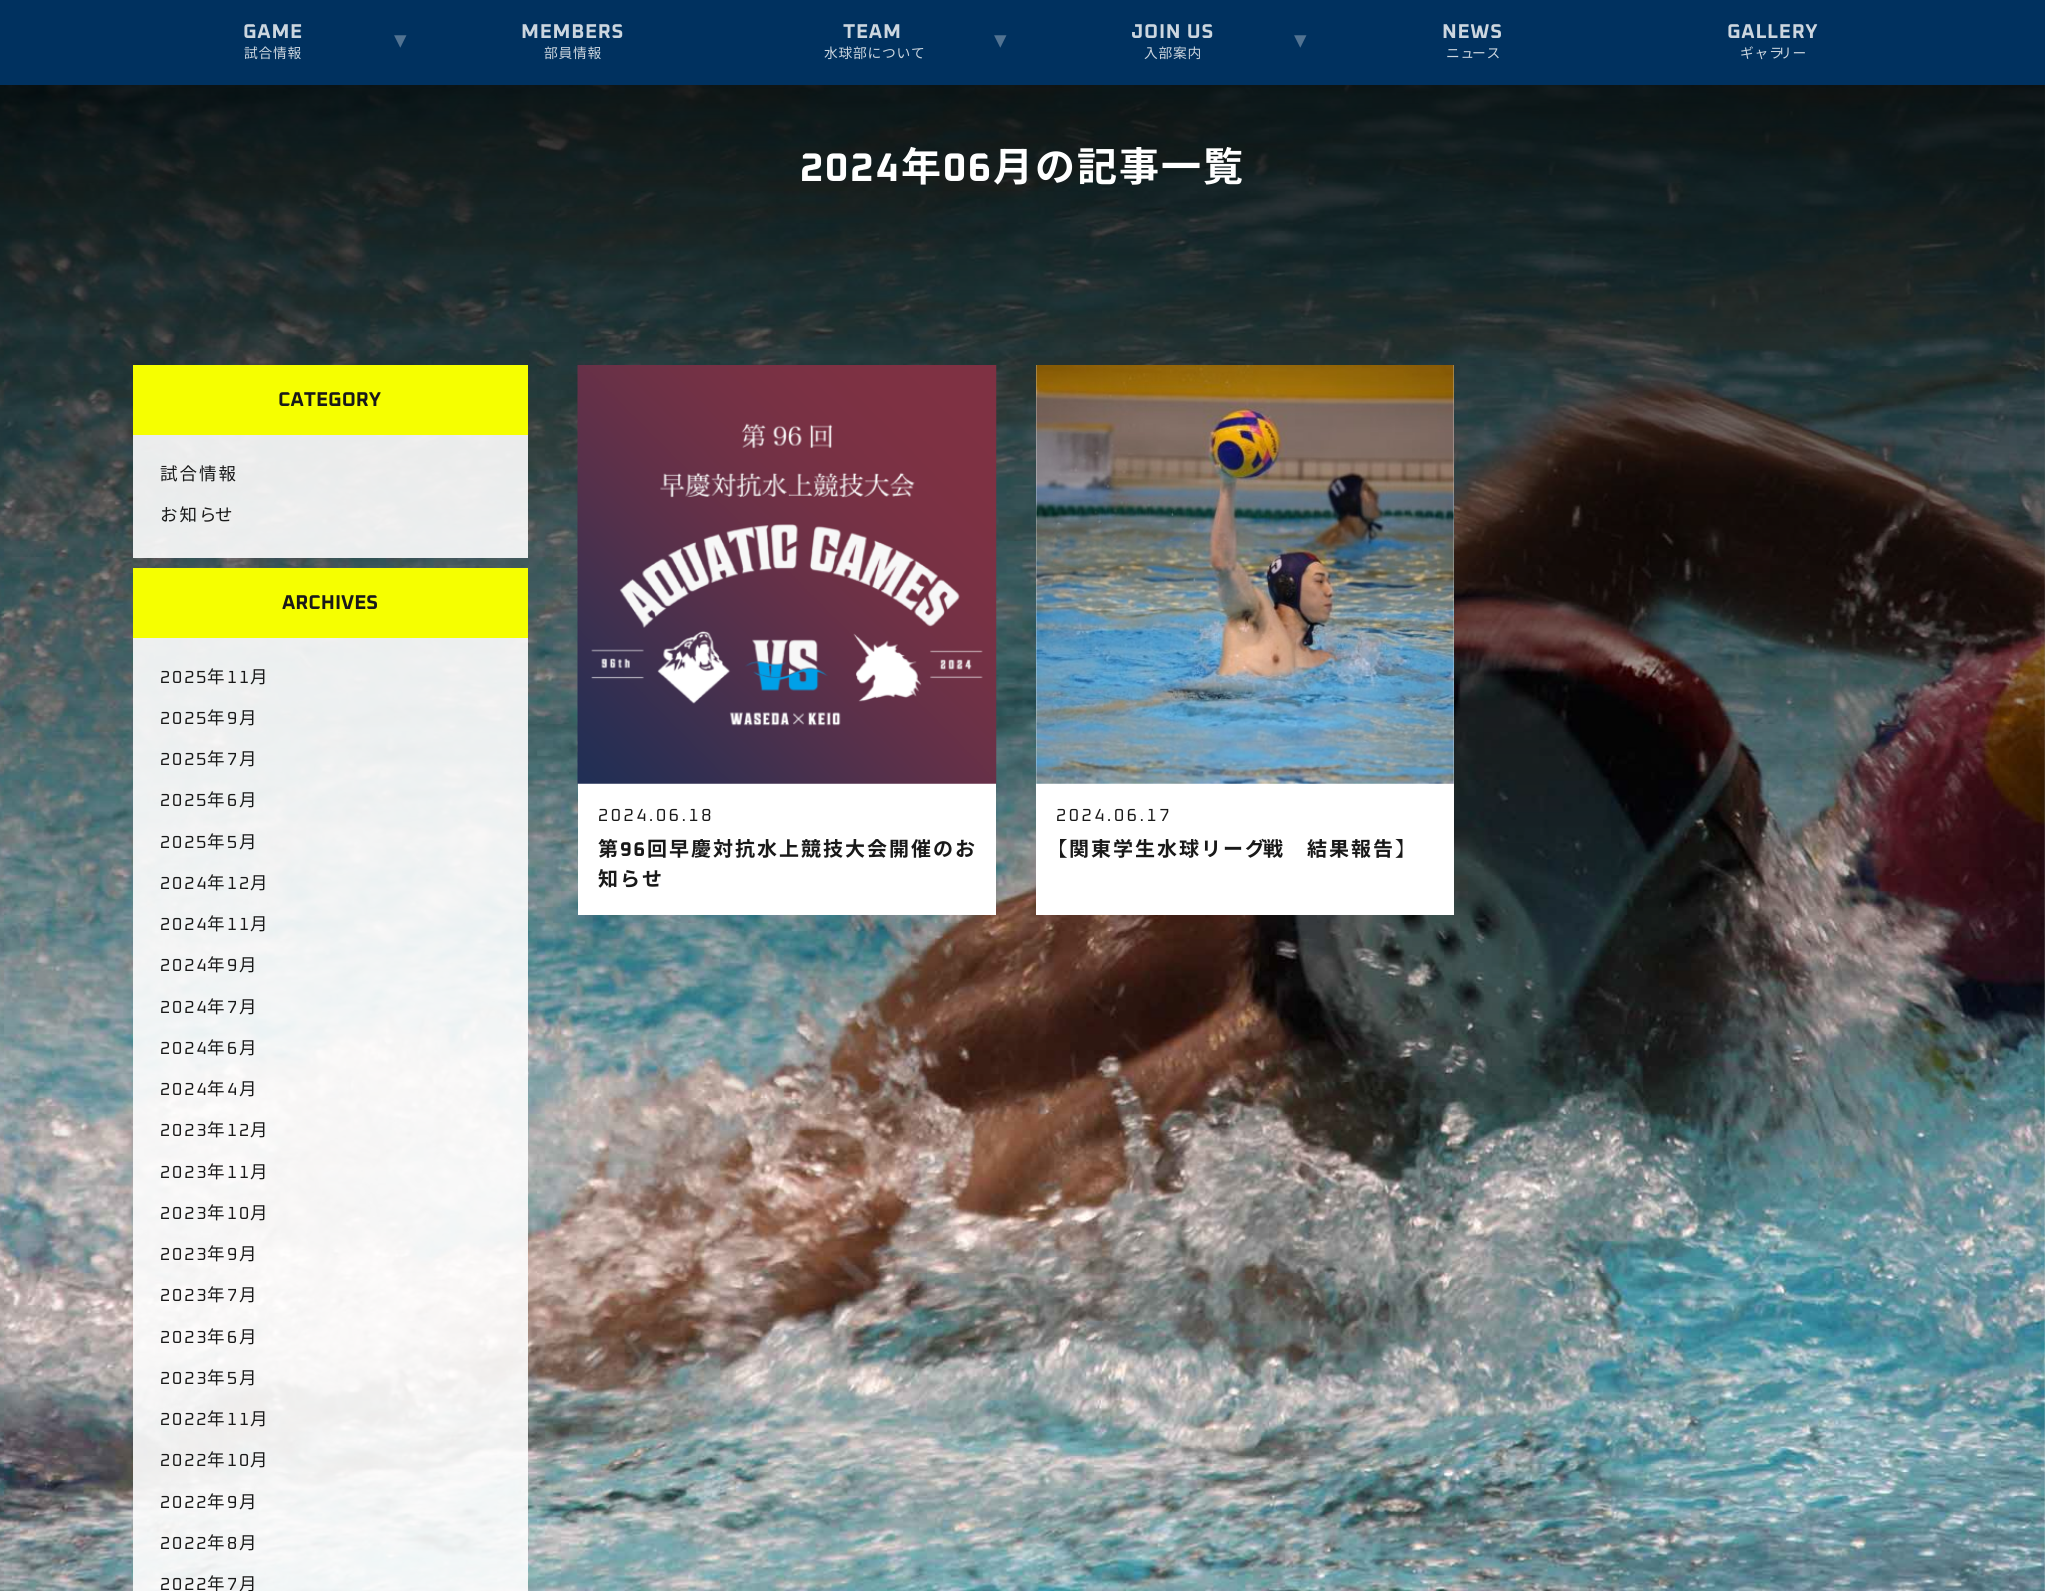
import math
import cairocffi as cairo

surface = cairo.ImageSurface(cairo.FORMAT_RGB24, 2045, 1591)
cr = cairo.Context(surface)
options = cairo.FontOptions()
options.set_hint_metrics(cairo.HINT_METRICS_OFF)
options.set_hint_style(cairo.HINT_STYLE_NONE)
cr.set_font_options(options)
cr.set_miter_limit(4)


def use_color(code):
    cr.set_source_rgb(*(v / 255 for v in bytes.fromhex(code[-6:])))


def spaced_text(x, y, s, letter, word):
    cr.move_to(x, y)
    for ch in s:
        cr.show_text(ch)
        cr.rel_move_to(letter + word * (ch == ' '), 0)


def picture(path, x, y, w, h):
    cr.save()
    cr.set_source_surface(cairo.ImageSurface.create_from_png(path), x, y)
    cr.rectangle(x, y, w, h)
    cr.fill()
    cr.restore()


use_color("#ffffff")
cr.paint()
use_color("#00315f")
cr.rectangle(0, 0, 2045, 85)
cr.fill()
cr.select_font_face("Oxanium", cairo.FONT_SLANT_NORMAL, cairo.FONT_WEIGHT_BOLD)
cr.set_font_size(20)
use_color("#ccd6df")
spaced_text(243, 38, "GAME", 0.75, 0)
cr.select_font_face("DejaVu Sans")
cr.set_font_size(25)
use_color("#527392")
spaced_text(394, 48, "▾", 0.75, 0)
cr.select_font_face("Noto Sans JP")
cr.set_font_size(13.75)
use_color("#ccd6df")
spaced_text(244, 58, "試合情報", 0.75, 0)
cr.select_font_face("Oxanium", cairo.FONT_SLANT_NORMAL, cairo.FONT_WEIGHT_BOLD)
cr.set_font_size(20)
spaced_text(521, 38, "MEMBERS", 0.75, 0)
cr.select_font_face("Noto Sans JP")
cr.set_font_size(13.75)
spaced_text(544, 58, "部員情報", 0.75, 0)
cr.select_font_face("Oxanium", cairo.FONT_SLANT_NORMAL, cairo.FONT_WEIGHT_BOLD)
cr.set_font_size(20)
spaced_text(843, 38, "TEAM", 0.75, 0)
cr.select_font_face("DejaVu Sans")
cr.set_font_size(25)
use_color("#527392")
spaced_text(994, 48, "▾", 0.75, 0)
cr.select_font_face("Noto Sans JP")
cr.set_font_size(13.75)
use_color("#ccd6df")
spaced_text(824, 58, "水球部について", 0.75, 0)
cr.select_font_face("Oxanium", cairo.FONT_SLANT_NORMAL, cairo.FONT_WEIGHT_BOLD)
cr.set_font_size(20)
spaced_text(1131, 38, "JOIN US", 0.75, 0)
cr.select_font_face("DejaVu Sans")
cr.set_font_size(25)
use_color("#527392")
spaced_text(1294, 48, "▾", 0.75, 0)
cr.select_font_face("Noto Sans JP")
cr.set_font_size(13.75)
use_color("#ccd6df")
spaced_text(1144, 58, "入部案内", 0.75, 0)
cr.select_font_face("Oxanium", cairo.FONT_SLANT_NORMAL, cairo.FONT_WEIGHT_BOLD)
cr.set_font_size(20)
spaced_text(1442, 38, "NEWS", 0.75, 0)
cr.select_font_face("Noto Sans JP")
cr.set_font_size(13.75)
spaced_text(1446, 58, "ニュ", 0.75, 0)
spaced_text(1472, 58, "ース", 0.75, 0)
cr.select_font_face("Oxanium", cairo.FONT_SLANT_NORMAL, cairo.FONT_WEIGHT_BOLD)
cr.set_font_size(20)
spaced_text(1727, 38, "GALLERY", 0.75, 0)
cr.select_font_face("Noto Sans JP")
cr.set_font_size(13.75)
spaced_text(1740, 58, "ギャラ", 0.75, 0)
spaced_text(1778, 58, "リー", 0.75, 0)
picture("img1.png", 0, 85, 2045, 1506)
gradient = cairo.LinearGradient(1022, 0, 1023, 1591)
gradient.add_color_stop_rgba(0, 0, 0, 0, 0.9)
gradient.add_color_stop_rgba(0.75, 0, 0, 0, 0)
gradient.add_color_stop_rgba(1, 0, 0, 0, 0)
cr.set_source(gradient)
cr.rectangle(0, 85, 2045, 1080)
cr.fill()
cr.select_font_face("Oxanium", cairo.FONT_SLANT_NORMAL, cairo.FONT_WEIGHT_BOLD)
cr.set_font_size(40)
use_color("#ffffff")
spaced_text(800, 181, "2024", 2, 0)
cr.select_font_face("Noto Sans JP", cairo.FONT_SLANT_NORMAL, cairo.FONT_WEIGHT_BOLD)
spaced_text(901, 181, "年", 2, 0)
cr.select_font_face("Oxanium", cairo.FONT_SLANT_NORMAL, cairo.FONT_WEIGHT_BOLD)
spaced_text(943, 181, "06", 2, 0)
cr.select_font_face("Noto Sans JP", cairo.FONT_SLANT_NORMAL, cairo.FONT_WEIGHT_BOLD)
spaced_text(993, 181, "月の記事一覧", 2, 0)
cr.set_source_rgba(1, 1, 1, 0.9)
cr.rectangle(133, 435, 395, 123)
cr.fill()
use_color("#f6ff00")
cr.rectangle(133, 365, 395, 70)
cr.fill()
cr.select_font_face("Oxanium", cairo.FONT_SLANT_NORMAL, cairo.FONT_WEIGHT_BOLD)
cr.set_font_size(20)
use_color("#191919")
cr.move_to(278, 406)
cr.show_text("CATEGORY")
cr.select_font_face("Noto Sans JP")
cr.set_font_size(17.5)
spaced_text(160, 480, "試合情報", 2, 0)
spaced_text(160, 521, "お知ら", 2, 0)
spaced_text(215, 521, "せ", 2, 0)
cr.set_source_rgba(1, 1, 1, 0.9)
cr.rectangle(133, 638, 395, 953)
cr.fill()
use_color("#f6ff00")
cr.rectangle(133, 568, 395, 70)
cr.fill()
cr.select_font_face("Oxanium", cairo.FONT_SLANT_NORMAL, cairo.FONT_WEIGHT_BOLD)
cr.set_font_size(20)
use_color("#191919")
cr.move_to(282, 609)
cr.show_text("ARCHIVES")
cr.select_font_face("Oxanium")
cr.set_font_size(17.5)
spaced_text(160, 683, "2025", 2, 0)
cr.select_font_face("Noto Sans JP")
spaced_text(207, 683, "年", 2, 0)
cr.select_font_face("Oxanium")
spaced_text(227, 683, "11", 2, 0)
cr.select_font_face("Noto Sans JP")
spaced_text(250, 683, "月", 2, 0)
cr.select_font_face("Oxanium")
spaced_text(160, 724, "2025", 2, 0)
cr.select_font_face("Noto Sans JP")
spaced_text(207, 724, "年", 2, 0)
cr.select_font_face("Oxanium")
spaced_text(227, 724, "9", 2, 0)
cr.select_font_face("Noto Sans JP")
spaced_text(239, 724, "月", 2, 0)
cr.select_font_face("Oxanium")
spaced_text(160, 765, "2025", 2, 0)
cr.select_font_face("Noto Sans JP")
spaced_text(207, 765, "年", 2, 0)
cr.select_font_face("Oxanium")
spaced_text(227, 765, "7", 2, 0)
cr.select_font_face("Noto Sans JP")
spaced_text(239, 765, "月", 2, 0)
cr.select_font_face("Oxanium")
spaced_text(160, 806, "2025", 2, 0)
cr.select_font_face("Noto Sans JP")
spaced_text(207, 806, "年", 2, 0)
cr.select_font_face("Oxanium")
spaced_text(227, 806, "6", 2, 0)
cr.select_font_face("Noto Sans JP")
spaced_text(239, 806, "月", 2, 0)
cr.select_font_face("Oxanium")
spaced_text(160, 848, "2025", 2, 0)
cr.select_font_face("Noto Sans JP")
spaced_text(207, 848, "年", 2, 0)
cr.select_font_face("Oxanium")
spaced_text(227, 848, "5", 2, 0)
cr.select_font_face("Noto Sans JP")
spaced_text(239, 848, "月", 2, 0)
cr.select_font_face("Oxanium")
spaced_text(160, 889, "2024", 2, 0)
cr.select_font_face("Noto Sans JP")
spaced_text(207, 889, "年", 2, 0)
cr.select_font_face("Oxanium")
spaced_text(227, 889, "12", 2, 0)
cr.select_font_face("Noto Sans JP")
spaced_text(250, 889, "月", 2, 0)
cr.select_font_face("Oxanium")
spaced_text(160, 930, "2024", 2, 0)
cr.select_font_face("Noto Sans JP")
spaced_text(207, 930, "年", 2, 0)
cr.select_font_face("Oxanium")
spaced_text(227, 930, "11", 2, 0)
cr.select_font_face("Noto Sans JP")
spaced_text(250, 930, "月", 2, 0)
cr.select_font_face("Oxanium")
spaced_text(160, 971, "2024", 2, 0)
cr.select_font_face("Noto Sans JP")
spaced_text(207, 971, "年", 2, 0)
cr.select_font_face("Oxanium")
spaced_text(227, 971, "9", 2, 0)
cr.select_font_face("Noto Sans JP")
spaced_text(239, 971, "月", 2, 0)
cr.select_font_face("Oxanium")
spaced_text(160, 1013, "2024", 2, 0)
cr.select_font_face("Noto Sans JP")
spaced_text(207, 1013, "年", 2, 0)
cr.select_font_face("Oxanium")
spaced_text(227, 1013, "7", 2, 0)
cr.select_font_face("Noto Sans JP")
spaced_text(239, 1013, "月", 2, 0)
cr.select_font_face("Oxanium")
spaced_text(160, 1054, "2024", 2, 0)
cr.select_font_face("Noto Sans JP")
spaced_text(207, 1054, "年", 2, 0)
cr.select_font_face("Oxanium")
spaced_text(227, 1054, "6", 2, 0)
cr.select_font_face("Noto Sans JP")
spaced_text(239, 1054, "月", 2, 0)
cr.select_font_face("Oxanium")
spaced_text(160, 1095, "2024", 2, 0)
cr.select_font_face("Noto Sans JP")
spaced_text(207, 1095, "年", 2, 0)
cr.select_font_face("Oxanium")
spaced_text(227, 1095, "4", 2, 0)
cr.select_font_face("Noto Sans JP")
spaced_text(239, 1095, "月", 2, 0)
cr.select_font_face("Oxanium")
spaced_text(160, 1136, "2023", 2, 0)
cr.select_font_face("Noto Sans JP")
spaced_text(207, 1136, "年", 2, 0)
cr.select_font_face("Oxanium")
spaced_text(227, 1136, "12", 2, 0)
cr.select_font_face("Noto Sans JP")
spaced_text(250, 1136, "月", 2, 0)
cr.select_font_face("Oxanium")
spaced_text(160, 1178, "2023", 2, 0)
cr.select_font_face("Noto Sans JP")
spaced_text(207, 1178, "年", 2, 0)
cr.select_font_face("Oxanium")
spaced_text(227, 1178, "11", 2, 0)
cr.select_font_face("Noto Sans JP")
spaced_text(250, 1178, "月", 2, 0)
cr.select_font_face("Oxanium")
spaced_text(160, 1219, "2023", 2, 0)
cr.select_font_face("Noto Sans JP")
spaced_text(207, 1219, "年", 2, 0)
cr.select_font_face("Oxanium")
spaced_text(227, 1219, "10", 2, 0)
cr.select_font_face("Noto Sans JP")
spaced_text(250, 1219, "月", 2, 0)
cr.select_font_face("Oxanium")
spaced_text(160, 1260, "2023", 2, 0)
cr.select_font_face("Noto Sans JP")
spaced_text(207, 1260, "年", 2, 0)
cr.select_font_face("Oxanium")
spaced_text(227, 1260, "9", 2, 0)
cr.select_font_face("Noto Sans JP")
spaced_text(239, 1260, "月", 2, 0)
cr.select_font_face("Oxanium")
spaced_text(160, 1301, "2023", 2, 0)
cr.select_font_face("Noto Sans JP")
spaced_text(207, 1301, "年", 2, 0)
cr.select_font_face("Oxanium")
spaced_text(227, 1301, "7", 2, 0)
cr.select_font_face("Noto Sans JP")
spaced_text(239, 1301, "月", 2, 0)
cr.select_font_face("Oxanium")
spaced_text(160, 1343, "2023", 2, 0)
cr.select_font_face("Noto Sans JP")
spaced_text(207, 1343, "年", 2, 0)
cr.select_font_face("Oxanium")
spaced_text(227, 1343, "6", 2, 0)
cr.select_font_face("Noto Sans JP")
spaced_text(239, 1343, "月", 2, 0)
cr.select_font_face("Oxanium")
spaced_text(160, 1384, "2023", 2, 0)
cr.select_font_face("Noto Sans JP")
spaced_text(207, 1384, "年", 2, 0)
cr.select_font_face("Oxanium")
spaced_text(227, 1384, "5", 2, 0)
cr.select_font_face("Noto Sans JP")
spaced_text(239, 1384, "月", 2, 0)
cr.select_font_face("Oxanium")
spaced_text(160, 1425, "2022", 2, 0)
cr.select_font_face("Noto Sans JP")
spaced_text(207, 1425, "年", 2, 0)
cr.select_font_face("Oxanium")
spaced_text(227, 1425, "11", 2, 0)
cr.select_font_face("Noto Sans JP")
spaced_text(250, 1425, "月", 2, 0)
cr.select_font_face("Oxanium")
spaced_text(160, 1466, "2022", 2, 0)
cr.select_font_face("Noto Sans JP")
spaced_text(207, 1466, "年", 2, 0)
cr.select_font_face("Oxanium")
spaced_text(227, 1466, "10", 2, 0)
cr.select_font_face("Noto Sans JP")
spaced_text(250, 1466, "月", 2, 0)
cr.select_font_face("Oxanium")
spaced_text(160, 1508, "2022", 2, 0)
cr.select_font_face("Noto Sans JP")
spaced_text(207, 1508, "年", 2, 0)
cr.select_font_face("Oxanium")
spaced_text(227, 1508, "9", 2, 0)
cr.select_font_face("Noto Sans JP")
spaced_text(239, 1508, "月", 2, 0)
cr.select_font_face("Oxanium")
spaced_text(160, 1549, "2022", 2, 0)
cr.select_font_face("Noto Sans JP")
spaced_text(207, 1549, "年", 2, 0)
cr.select_font_face("Oxanium")
spaced_text(227, 1549, "8", 2, 0)
cr.select_font_face("Noto Sans JP")
spaced_text(239, 1549, "月", 2, 0)
cr.select_font_face("Oxanium")
spaced_text(160, 1590, "2022", 2, 0)
cr.select_font_face("Noto Sans JP")
spaced_text(207, 1590, "年", 2, 0)
cr.select_font_face("Oxanium")
spaced_text(227, 1590, "7", 2, 0)
cr.select_font_face("Noto Sans JP")
spaced_text(239, 1590, "月", 2, 0)
use_color("#ffffff")
cr.rectangle(578, 783, 418, 132)
cr.fill()
picture("img2.png", 577, 365, 420, 419)
cr.select_font_face("Oxanium")
use_color("#191919")
spaced_text(598, 821, "2024.06.18", 2.6, 0)
cr.select_font_face("Noto Sans JP", cairo.FONT_SLANT_NORMAL, cairo.FONT_WEIGHT_BOLD)
cr.set_font_size(20)
spaced_text(598, 856, "第", 2, 0)
cr.select_font_face("Oxanium", cairo.FONT_SLANT_NORMAL, cairo.FONT_WEIGHT_BOLD)
spaced_text(620, 856, "96", 2, 0)
cr.select_font_face("Noto Sans JP", cairo.FONT_SLANT_NORMAL, cairo.FONT_WEIGHT_BOLD)
spaced_text(647, 856, "回早慶対抗水上競技大会開催のお", 2, 0)
spaced_text(598, 886, "知らせ", 2, 0)
use_color("#ffffff")
cr.rectangle(1036, 365, 418, 550)
cr.fill()
picture("img3.png", 1036, 365, 418, 419)
cr.select_font_face("Oxanium")
cr.set_font_size(17.5)
use_color("#191919")
spaced_text(1056, 821, "2024.06.17", 2.6, 0)
cr.select_font_face("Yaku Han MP", cairo.FONT_SLANT_NORMAL, cairo.FONT_WEIGHT_BOLD)
cr.set_font_size(20)
spaced_text(1056, 856, "【", 2, 0)
cr.select_font_face("Noto Sans JP", cairo.FONT_SLANT_NORMAL, cairo.FONT_WEIGHT_BOLD)
spaced_text(1069, 856, "関東学生水球リーグ", 2, 0)
spaced_text(1263, 856, "戦　結果報告", 2, 0)
cr.select_font_face("Yaku Han MP", cairo.FONT_SLANT_NORMAL, cairo.FONT_WEIGHT_BOLD)
spaced_text(1395, 856, "】", 2, 0)
surface.write_to_png("result.png")
